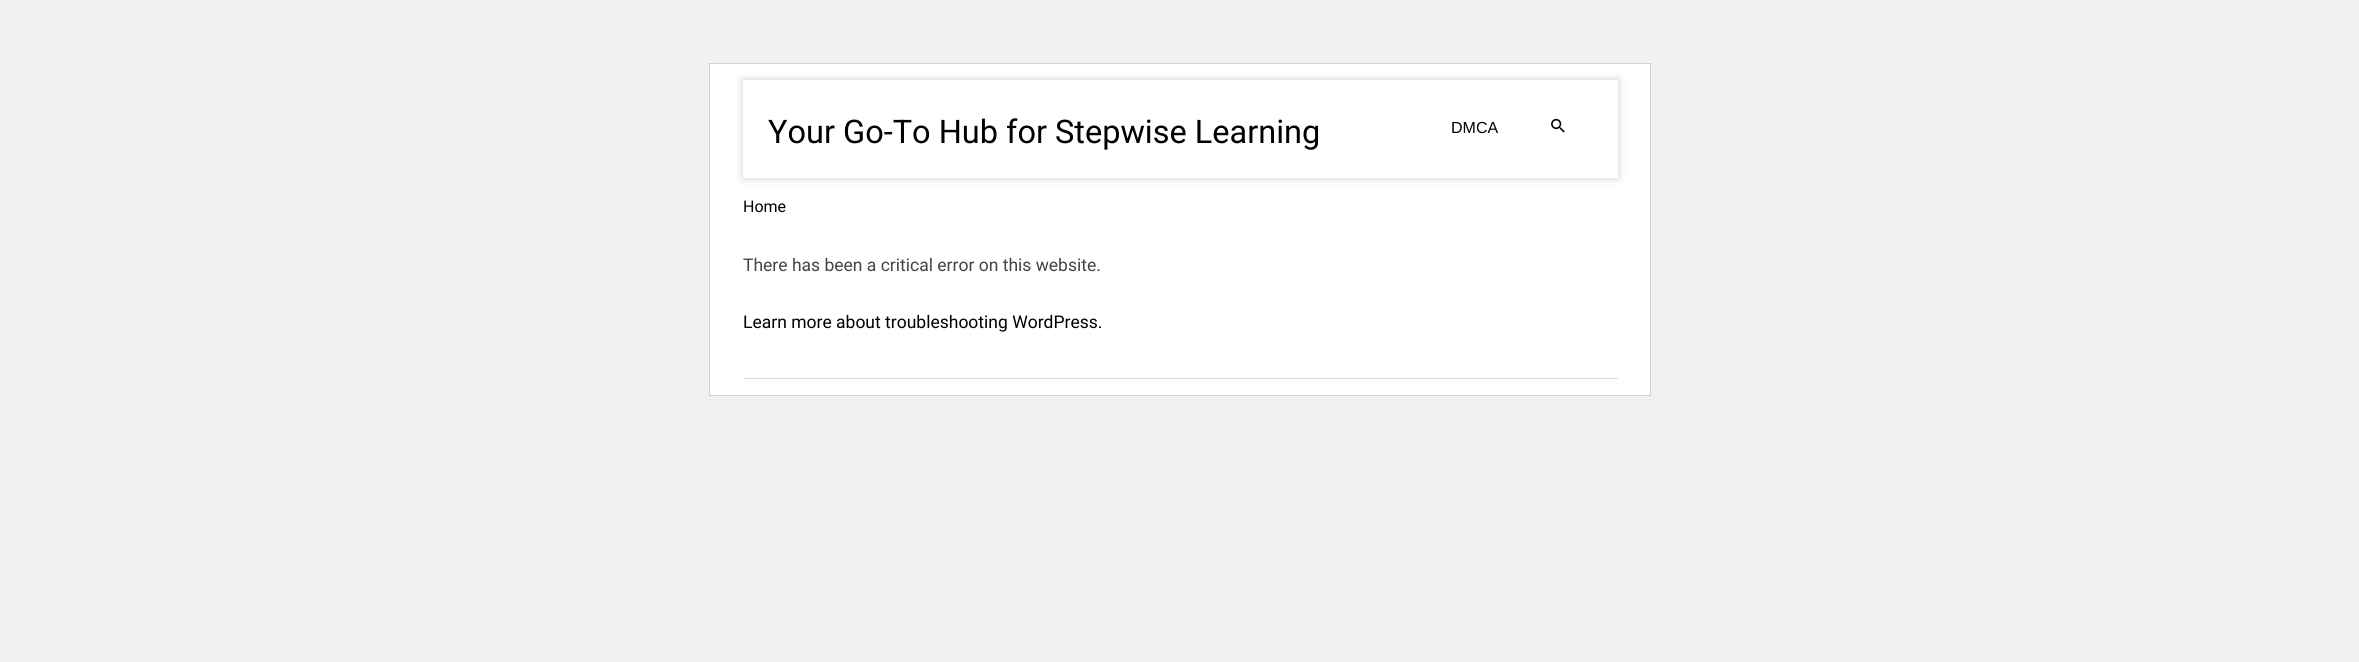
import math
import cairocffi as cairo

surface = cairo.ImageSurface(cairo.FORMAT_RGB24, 2359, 662)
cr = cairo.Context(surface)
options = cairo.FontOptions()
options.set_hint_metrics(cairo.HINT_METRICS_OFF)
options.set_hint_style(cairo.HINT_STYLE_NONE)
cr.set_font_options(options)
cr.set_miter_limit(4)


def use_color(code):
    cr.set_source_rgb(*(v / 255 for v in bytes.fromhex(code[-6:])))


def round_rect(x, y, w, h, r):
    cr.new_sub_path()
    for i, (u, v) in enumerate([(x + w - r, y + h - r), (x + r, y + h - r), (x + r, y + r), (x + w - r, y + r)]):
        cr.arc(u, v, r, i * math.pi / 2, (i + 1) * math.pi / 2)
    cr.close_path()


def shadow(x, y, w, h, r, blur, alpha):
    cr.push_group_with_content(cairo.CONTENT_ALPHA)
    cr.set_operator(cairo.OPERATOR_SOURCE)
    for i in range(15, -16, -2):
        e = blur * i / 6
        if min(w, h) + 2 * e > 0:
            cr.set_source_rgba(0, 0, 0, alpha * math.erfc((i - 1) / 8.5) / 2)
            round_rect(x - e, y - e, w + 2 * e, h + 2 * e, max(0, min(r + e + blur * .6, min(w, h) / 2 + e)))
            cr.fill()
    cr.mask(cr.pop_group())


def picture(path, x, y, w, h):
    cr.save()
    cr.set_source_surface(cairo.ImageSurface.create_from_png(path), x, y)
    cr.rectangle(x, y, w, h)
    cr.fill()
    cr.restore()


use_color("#f1f1f1")
cr.paint()
use_color("#ffffff")
cr.rectangle(709.5, 63.5, 941, 332)
cr.fill_preserve()
use_color("#ccd0d4")
cr.set_line_width(1)
cr.stroke()
use_color("#000000")
shadow(743, 80, 875, 98, 0, 4.5, 0.2)
use_color("#ffffff")
cr.rectangle(743, 80, 875, 98)
cr.fill()
cr.select_font_face("Roboto")
cr.set_font_size(32.5)
use_color("#000000")
cr.move_to(768, 143)
cr.show_text("Your Go-To Hub for Stepwise Learning")
cr.select_font_face("Liberation Sans")
cr.set_font_size(16)
cr.move_to(1451, 133)
cr.show_text("DMCA")
picture("img1.png", 1551, 118, 14, 15)
use_color("#dadada")
cr.rectangle(743, 378, 875, 1)
cr.fill()
cr.select_font_face("Roboto")
use_color("#000000")
cr.move_to(743, 212)
cr.show_text("Home")
cr.set_font_size(17.5)
use_color("#444444")
cr.move_to(743, 271)
cr.show_text("There has been a critical error on this website.")
use_color("#000000")
cr.move_to(743, 328)
cr.show_text("Learn more about troubleshooting WordPress.")
surface.write_to_png("result.png")
